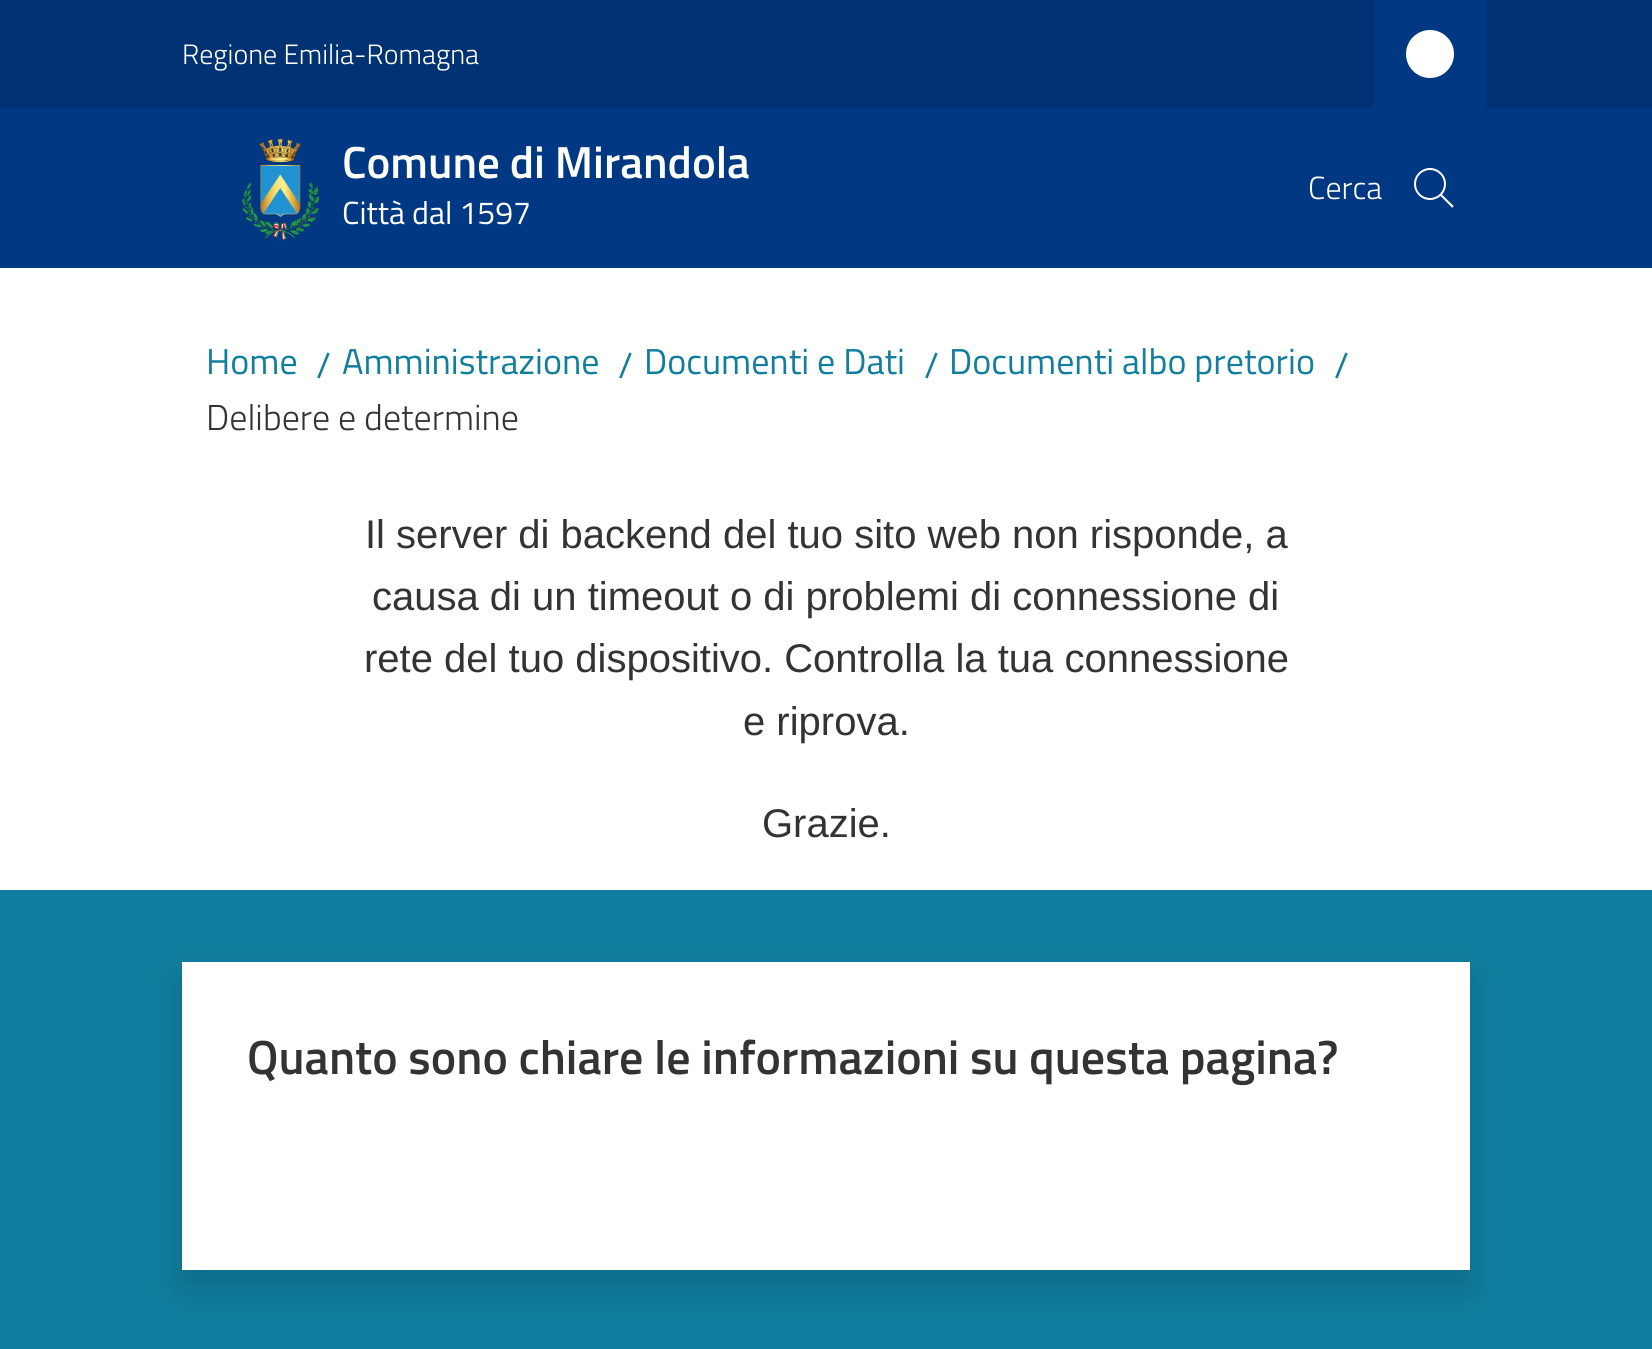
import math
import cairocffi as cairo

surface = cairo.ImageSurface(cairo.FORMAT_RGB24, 1652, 1349)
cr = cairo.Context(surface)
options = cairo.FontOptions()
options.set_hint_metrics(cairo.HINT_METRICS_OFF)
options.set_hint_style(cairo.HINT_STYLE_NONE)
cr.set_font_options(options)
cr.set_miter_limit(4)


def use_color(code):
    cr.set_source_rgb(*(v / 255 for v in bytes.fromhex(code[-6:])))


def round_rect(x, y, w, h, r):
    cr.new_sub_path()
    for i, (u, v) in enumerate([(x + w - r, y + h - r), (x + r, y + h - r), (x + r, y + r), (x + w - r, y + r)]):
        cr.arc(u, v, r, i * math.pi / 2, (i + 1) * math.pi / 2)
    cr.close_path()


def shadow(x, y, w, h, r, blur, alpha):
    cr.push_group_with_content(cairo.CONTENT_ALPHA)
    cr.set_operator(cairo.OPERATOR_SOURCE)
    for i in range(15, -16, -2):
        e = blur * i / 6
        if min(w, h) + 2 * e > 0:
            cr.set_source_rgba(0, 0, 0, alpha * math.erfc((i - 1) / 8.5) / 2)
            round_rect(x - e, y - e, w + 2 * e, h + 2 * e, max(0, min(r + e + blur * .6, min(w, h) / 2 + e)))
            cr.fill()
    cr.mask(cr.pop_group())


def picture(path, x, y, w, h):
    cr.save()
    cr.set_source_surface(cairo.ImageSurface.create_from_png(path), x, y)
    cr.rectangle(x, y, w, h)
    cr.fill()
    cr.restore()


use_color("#ffffff")
cr.paint()
use_color("#003274")
cr.rectangle(0, 0, 1652, 108)
cr.fill()
cr.select_font_face("Titillium Web Light")
cr.set_font_size(28)
use_color("#ffffff")
cr.move_to(182, 64)
cr.show_text("Regione Emilia-Romagna")
use_color("#003883")
cr.rectangle(1374, 0, 112, 108)
cr.fill()
use_color("#ffffff")
cr.arc(1430, 54, 24, 0, 2 * math.pi)
cr.fill()
use_color("#003883")
cr.rectangle(0, 108, 1652, 160)
cr.fill()
picture("img1.png", 242, 138, 78, 103)
cr.select_font_face("Titillium Web SemiBold")
cr.set_font_size(45)
use_color("#ffffff")
cr.move_to(342, 178)
cr.show_text("Comune di Mirandola")
cr.select_font_face("Titillium Web")
cr.set_font_size(32)
cr.move_to(342, 224)
cr.show_text("Città dal 1597")
cr.select_font_face("Titillium Web Light")
cr.move_to(1308, 199)
cr.show_text("Cerca")
picture("img2.png", 1414, 168, 40, 40)
cr.select_font_face("Titillium Web")
cr.set_font_size(36)
use_color("#107e9e")
cr.move_to(206, 374)
cr.show_text("Home")
cr.move_to(316, 378)
cr.show_text("/")
cr.move_to(342, 374)
cr.show_text("Amministrazione")
cr.move_to(618, 378)
cr.show_text("/")
cr.move_to(644, 374)
cr.show_text("Documenti e Dati")
cr.move_to(924, 378)
cr.show_text("/")
cr.move_to(949, 374)
cr.show_text("Documenti albo pretorio")
cr.move_to(1334, 378)
cr.show_text("/")
cr.select_font_face("Titillium Web Light")
use_color("#333333")
cr.move_to(206, 430)
cr.show_text("Delibere e determine")
cr.select_font_face("Liberation Sans")
cr.set_font_size(40)
cr.move_to(365, 548)
cr.show_text("Il server di backend del tuo sito web non risponde, a")
cr.move_to(372, 610)
cr.show_text("causa di un timeout o di problemi di connessione di")
cr.move_to(364, 672)
cr.show_text("rete del tuo dispositivo. Controlla la tua connessione")
cr.move_to(743, 735)
cr.show_text("e riprova.")
cr.move_to(762, 837)
cr.show_text("Grazie.")
use_color("#107e9e")
cr.rectangle(0, 890, 1652, 459)
cr.fill()
use_color("#000000")
shadow(182, 980, 1288, 308, 0, 18, 0.15)
use_color("#ffffff")
cr.rectangle(182, 962, 1288, 308)
cr.fill()
cr.select_font_face("Titillium Web SemiBold")
cr.set_font_size(48)
use_color("#333333")
cr.move_to(247, 1074)
cr.show_text("Quanto sono chiare le informazioni su questa pagina?")
surface.write_to_png("result.png")
